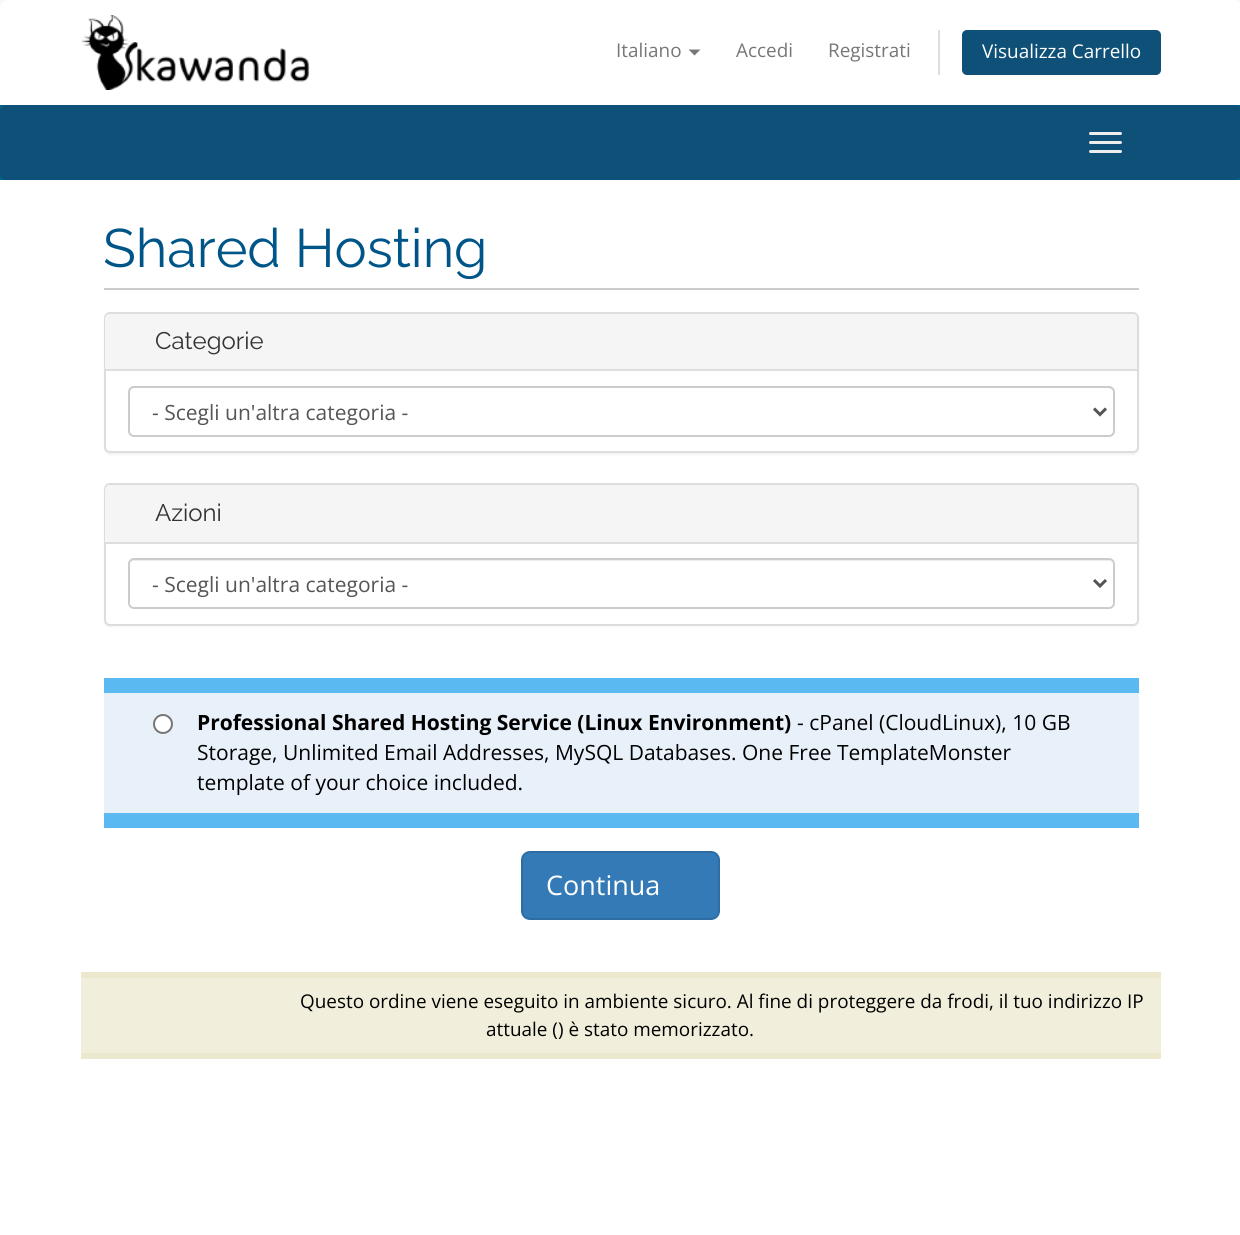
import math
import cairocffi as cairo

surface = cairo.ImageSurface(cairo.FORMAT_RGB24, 1240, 1235)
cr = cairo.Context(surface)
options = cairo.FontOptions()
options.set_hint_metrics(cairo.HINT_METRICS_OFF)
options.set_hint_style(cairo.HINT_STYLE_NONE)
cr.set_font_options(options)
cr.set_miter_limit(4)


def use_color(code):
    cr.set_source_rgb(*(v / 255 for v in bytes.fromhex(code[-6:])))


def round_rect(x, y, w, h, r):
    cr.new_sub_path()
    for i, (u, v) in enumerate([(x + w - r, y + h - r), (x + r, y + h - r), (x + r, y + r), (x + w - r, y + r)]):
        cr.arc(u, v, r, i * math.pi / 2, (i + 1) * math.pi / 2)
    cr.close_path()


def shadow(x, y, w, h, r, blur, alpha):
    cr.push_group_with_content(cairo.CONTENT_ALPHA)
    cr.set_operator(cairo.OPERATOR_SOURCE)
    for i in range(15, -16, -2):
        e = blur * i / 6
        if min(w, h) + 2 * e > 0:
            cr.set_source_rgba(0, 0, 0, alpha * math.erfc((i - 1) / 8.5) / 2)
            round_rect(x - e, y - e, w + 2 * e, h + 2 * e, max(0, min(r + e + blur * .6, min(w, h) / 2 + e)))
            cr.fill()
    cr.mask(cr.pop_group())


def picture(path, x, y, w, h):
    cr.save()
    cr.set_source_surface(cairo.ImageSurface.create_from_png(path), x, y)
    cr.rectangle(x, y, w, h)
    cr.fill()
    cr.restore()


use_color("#f8f8f8")
cr.paint()
use_color("#ffffff")
cr.new_path()
cr.move_to(8, 0)
cr.line_to(1233, 0)
cr.curve_to(1237.5, 0, 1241, 3.5, 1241, 8)
cr.line_to(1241, 105)
cr.line_to(0, 105)
cr.line_to(0, 8)
cr.curve_to(0, 3.5, 3.5, 0, 8, 0)
cr.close_path()
cr.fill()
picture("img1.png", 81, 15, 229, 75)
cr.select_font_face("Open Sans")
cr.set_font_size(18.9)
use_color("#777777")
cr.move_to(616, 57)
cr.show_text("Italiano")
cr.new_path()
cr.move_to(688.5, 49.5)
cr.line_to(700.5, 49.5)
cr.line_to(694.5, 55.5)
cr.close_path()
cr.fill()
cr.move_to(736, 57)
cr.show_text("Accedi")
cr.move_to(828, 57)
cr.show_text("Registrati")
use_color("#dddddd")
cr.rectangle(938, 30, 2, 45)
cr.fill()
use_color("#0e5077")
round_rect(962, 30, 199, 45, 5)
cr.fill()
use_color("#ffffff")
cr.move_to(982, 58)
cr.show_text("Visualizza Carrello")
use_color("#006687")
cr.rectangle(0, 105, 1240, 75)
cr.fill()
use_color("#0e5077")
round_rect(0, 105, 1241, 75, 6)
cr.fill()
use_color("#eeeeee")
round_rect(1089, 132, 33, 3, 1.5)
cr.fill()
round_rect(1089, 141, 33, 3, 1.5)
cr.fill()
round_rect(1089, 150, 33, 3, 1.5)
cr.fill()
use_color("#ffffff")
cr.rectangle(0, 180, 1240, 1055)
cr.fill()
use_color("#cccccc")
cr.rectangle(104, 288, 1035, 2)
cr.fill()
cr.select_font_face("Raleway")
cr.set_font_size(54)
use_color("#005588")
cr.move_to(103, 267)
cr.show_text("Shared Hosting")
use_color("#000000")
shadow(104, 314, 1035, 141, 6, 1, 0.05)
use_color("#ffffff")
round_rect(105, 313, 1033, 139, 5)
cr.fill_preserve()
use_color("#dddddd")
cr.stroke()
use_color("#f5f5f5")
cr.new_path()
cr.move_to(110, 314)
cr.line_to(1132, 314)
cr.curve_to(1135, 314, 1137, 316, 1137, 319)
cr.line_to(1137, 371)
cr.line_to(105, 371)
cr.line_to(105, 319)
cr.curve_to(105, 316, 107, 314, 110, 314)
cr.close_path()
cr.fill()
use_color("#dddddd")
cr.rectangle(105, 369, 1032, 2)
cr.fill()
cr.set_font_size(24)
use_color("#333333")
cr.move_to(155, 349)
cr.show_text("Categorie")
use_color("#ececec")
cr.new_path()
cr.move_to(134, 388)
cr.line_to(1108, 388)
cr.curve_to(1111, 388, 1113, 391, 1113, 393)
cr.curve_to(1113, 390, 1111, 387, 1108, 387)
cr.line_to(134, 387)
cr.curve_to(131, 387, 129, 390, 129, 393)
cr.curve_to(129, 391, 131, 388, 134, 388)
cr.close_path()
cr.fill()
round_rect(129, 387, 985, 49, 5)
use_color("#cccccc")
cr.stroke()
cr.new_path()
cr.move_to(1094, 408.5)
cr.line_to(1100, 414.5)
cr.line_to(1106, 408.5)
use_color("#555555")
cr.set_line_width(3)
cr.stroke()
cr.select_font_face("Open Sans")
cr.set_font_size(21)
cr.move_to(152, 420)
cr.show_text("- Scegli un'altra categoria -")
use_color("#000000")
shadow(104, 485, 1035, 142, 6, 1, 0.05)
use_color("#ffffff")
round_rect(105, 484, 1033, 141, 5)
cr.fill_preserve()
use_color("#dddddd")
cr.set_line_width(2)
cr.stroke()
use_color("#f5f5f5")
cr.new_path()
cr.move_to(110, 485)
cr.line_to(1132, 485)
cr.curve_to(1135, 485, 1137, 487, 1137, 490)
cr.line_to(1137, 543)
cr.line_to(105, 543)
cr.line_to(105, 490)
cr.curve_to(105, 487, 107, 485, 110, 485)
cr.close_path()
cr.fill()
use_color("#dddddd")
cr.rectangle(105, 542, 1032, 2)
cr.fill()
cr.select_font_face("Raleway")
cr.set_font_size(24)
use_color("#333333")
cr.move_to(155, 521)
cr.show_text("Azioni")
use_color("#ececec")
cr.new_path()
cr.move_to(134, 561)
cr.line_to(1108, 561)
cr.curve_to(1111, 561, 1113, 563, 1113, 566)
cr.curve_to(1113, 563, 1111, 560, 1108, 560)
cr.line_to(134, 560)
cr.curve_to(131, 560, 129, 563, 129, 566)
cr.curve_to(129, 563, 131, 561, 134, 561)
cr.close_path()
cr.fill()
round_rect(129, 559, 985, 49, 5)
use_color("#cccccc")
cr.stroke()
cr.new_path()
cr.move_to(1094, 580)
cr.line_to(1100, 586)
cr.line_to(1106, 580)
use_color("#555555")
cr.set_line_width(3)
cr.stroke()
cr.select_font_face("Open Sans")
cr.set_font_size(21)
cr.move_to(152, 592)
cr.show_text("- Scegli un'altra categoria -")
use_color("#5ab9f1")
cr.rectangle(104, 678, 1035, 15)
cr.fill()
cr.rectangle(104, 813, 1035, 15)
cr.fill()
use_color("#e8f0f9")
cr.rectangle(104, 693, 1035, 120)
cr.fill()
use_color("#ffffff")
cr.arc(163, 724, 9, 0, 2 * math.pi)
cr.fill_preserve()
use_color("#767676")
cr.set_line_width(2)
cr.stroke()
cr.select_font_face("Open Sans", cairo.FONT_SLANT_NORMAL, cairo.FONT_WEIGHT_BOLD)
use_color("#000000")
cr.move_to(197, 730)
cr.show_text("Professional Shared Hosting Service (Linux Environment)")
cr.select_font_face("Open Sans")
cr.move_to(797, 730)
cr.show_text("- cPanel (CloudLinux), 10 GB")
cr.move_to(197, 760)
cr.show_text("Storage, Unlimited Email Addresses, MySQL Databases. One Free TemplateMonster")
cr.move_to(197, 790)
cr.show_text("template of your choice included.")
use_color("#337ab7")
round_rect(522, 852, 197, 67, 8)
cr.fill_preserve()
use_color("#2e6da4")
cr.stroke()
cr.set_font_size(27)
use_color("#ffffff")
cr.move_to(546, 895)
cr.show_text("Continua")
use_color("#f1efdc")
cr.rectangle(81, 978, 1080, 75)
cr.fill()
use_color("#ebe8cd")
cr.rectangle(81, 972, 1080, 6)
cr.fill()
cr.rectangle(81, 1053, 1080, 6)
cr.fill()
cr.set_font_size(18.9)
use_color("#000000")
cr.move_to(300, 1008)
cr.show_text("Questo ordine viene eseguito in ambiente sicuro. Al fine di proteggere da frodi, il tuo indirizzo IP")
cr.move_to(486, 1036)
cr.show_text("attuale () è stato memorizzato.")
surface.write_to_png("result.png")
